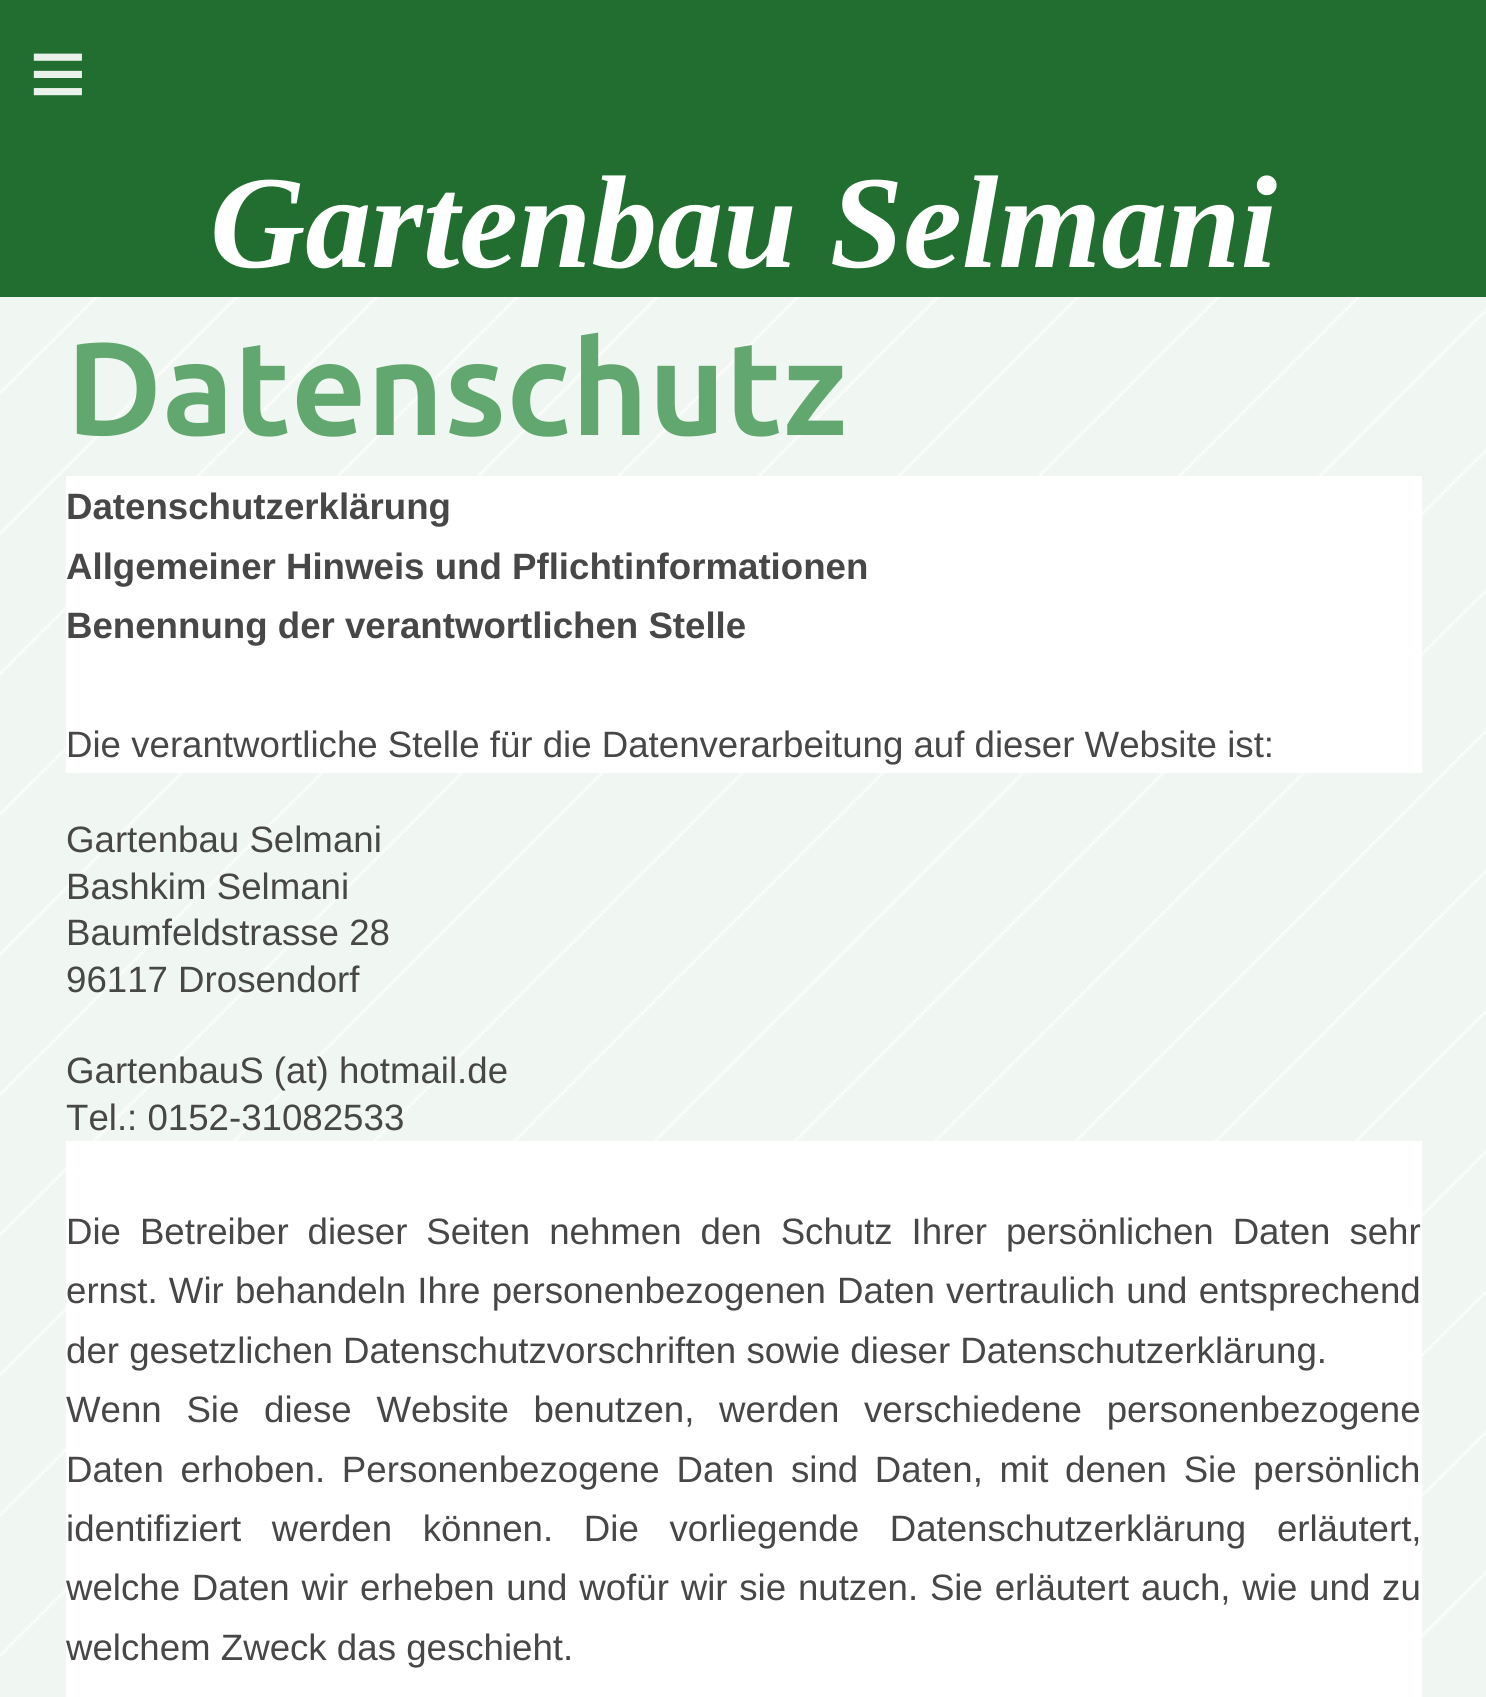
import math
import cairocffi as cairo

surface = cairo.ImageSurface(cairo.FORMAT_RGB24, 1486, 1697)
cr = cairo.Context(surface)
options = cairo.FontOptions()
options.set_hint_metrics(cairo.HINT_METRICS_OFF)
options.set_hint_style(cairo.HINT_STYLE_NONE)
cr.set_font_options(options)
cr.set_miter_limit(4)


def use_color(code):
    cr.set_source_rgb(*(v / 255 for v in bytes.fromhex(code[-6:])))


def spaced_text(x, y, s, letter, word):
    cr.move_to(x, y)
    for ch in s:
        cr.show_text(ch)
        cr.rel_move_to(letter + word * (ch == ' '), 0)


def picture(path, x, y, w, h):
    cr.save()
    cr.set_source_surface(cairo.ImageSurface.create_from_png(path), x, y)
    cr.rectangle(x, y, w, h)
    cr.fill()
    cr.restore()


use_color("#62a770")
cr.paint()
picture("img1.png", 0, 297, 1486, 1362)
use_color("#216e30")
cr.rectangle(0, 0, 1486, 297)
cr.fill()
cr.select_font_face("Liberation Sans")
cr.set_font_size(99)
use_color("#e9f1ea")
spaced_text(29, 107, "≡", 29, 0)
cr.select_font_face("Liberation Serif", cairo.FONT_SLANT_ITALIC, cairo.FONT_WEIGHT_BOLD)
cr.set_font_size(132)
use_color("#ffffff")
cr.move_to(210, 267)
cr.show_text("Gartenbau Selmani")
cr.set_source_rgba(1, 1, 1, 0.9)
cr.rectangle(0, 297, 1486, 1400)
cr.fill()
cr.select_font_face("Ubuntu", cairo.FONT_SLANT_NORMAL, cairo.FONT_WEIGHT_BOLD)
use_color("#62a770")
cr.move_to(66, 435)
cr.show_text("Datenschutz")
use_color("#ffffff")
cr.rectangle(66, 476, 1356, 297)
cr.fill()
cr.select_font_face("Liberation Sans", cairo.FONT_SLANT_NORMAL, cairo.FONT_WEIGHT_BOLD)
cr.set_font_size(36.65)
use_color("#474747")
cr.move_to(66, 519)
cr.show_text("Datenschutzerklärung")
cr.move_to(66, 579)
cr.show_text("Allgemeiner Hinweis und Pflichtinformationen")
cr.move_to(66, 638)
cr.show_text("Benennung der verantwortlichen Stelle")
cr.select_font_face("Liberation Sans")
cr.move_to(66, 757)
cr.show_text("Die verantwortliche Stelle für die Datenverarbeitung auf dieser Website ist:")
cr.move_to(66, 852)
cr.show_text("Gartenbau Selmani")
cr.move_to(66, 899)
cr.show_text("Bashkim Selmani")
cr.move_to(66, 945)
cr.show_text("Baumfeldstrasse 28")
cr.move_to(66, 992)
cr.show_text("96117 Drosendorf")
cr.move_to(66, 1083)
cr.show_text("GartenbauS (at) hotmail.de")
cr.move_to(66, 1130)
cr.show_text("Tel.: 0152-31082533")
use_color("#ffffff")
cr.rectangle(66, 1141, 1356, 556)
cr.fill()
use_color("#474747")
spaced_text(66, 1244, "Die Betreiber dieser Seiten nehmen den Schutz Ihrer persönlichen Daten sehr", 0, 8.75)
spaced_text(66, 1303, "ernst. Wir behandeln Ihre personenbezogenen Daten vertraulich und entsprechend", 0, 1)
cr.move_to(66, 1363)
cr.show_text("der gesetzlichen Datenschutzvorschriften sowie dieser Datenschutzerklärung.")
spaced_text(66, 1422, "Wenn Sie diese Website benutzen, werden verschiedene personenbezogene", 0, 14.5)
spaced_text(66, 1482, "Daten erhoben. Personenbezogene Daten sind Daten, mit denen Sie persönlich", 0, 6.5)
spaced_text(66, 1541, "identifiziert werden können. Die vorliegende Datenschutzerklärung erläutert,", 0, 20.5)
spaced_text(66, 1600, "welche Daten wir erheben und wofür wir sie nutzen. Sie erläutert auch, wie und zu", 0, 1.6)
cr.move_to(66, 1660)
cr.show_text("welchem Zweck das geschieht.")
surface.write_to_png("result.png")
